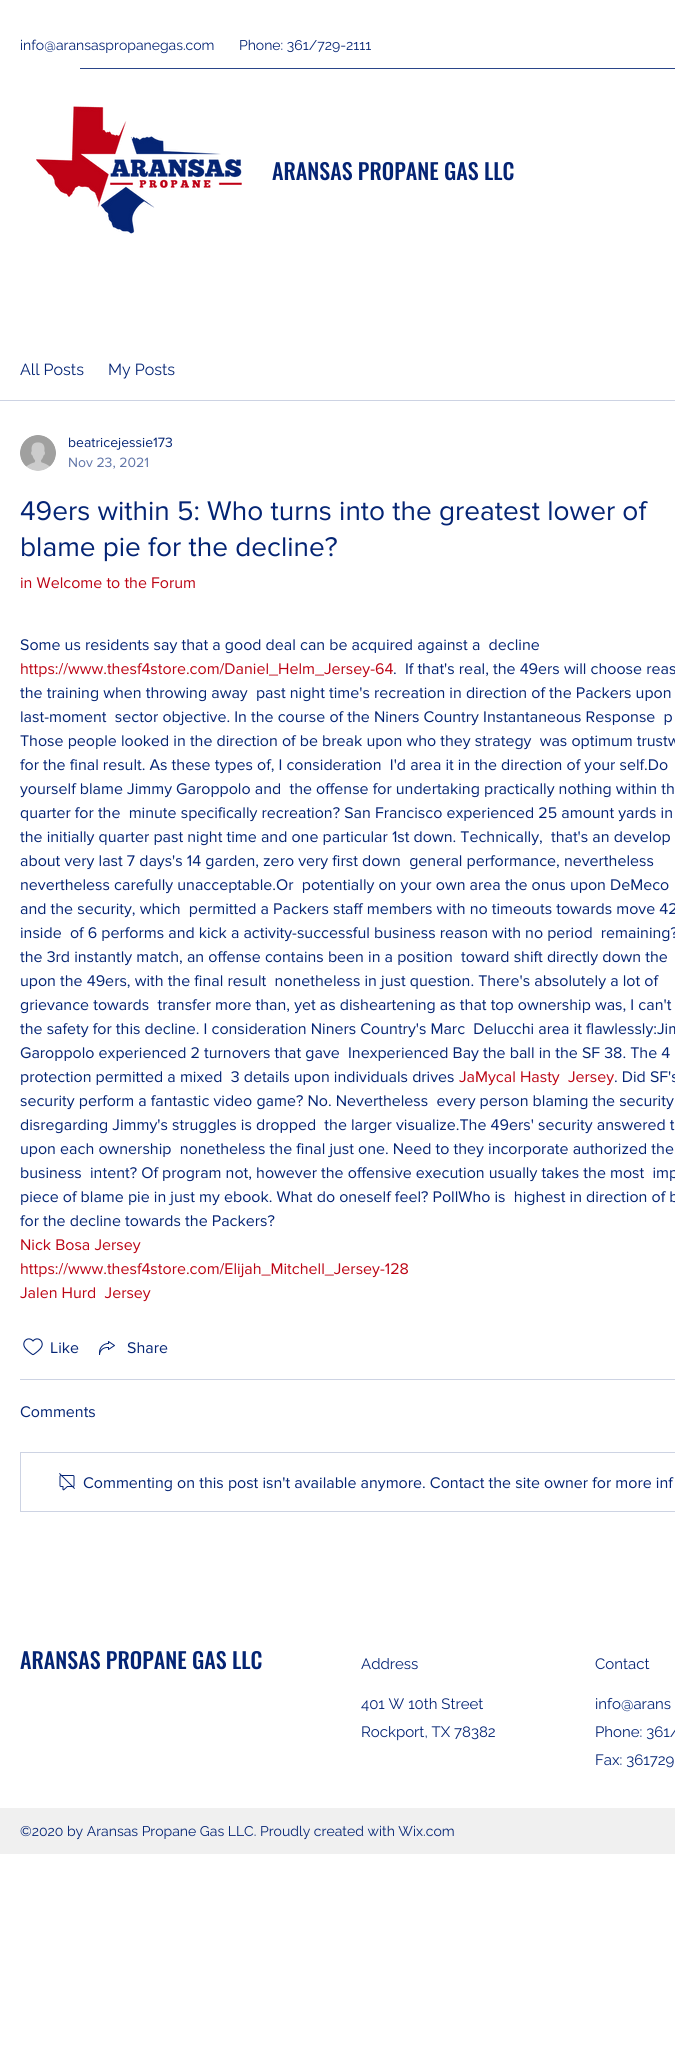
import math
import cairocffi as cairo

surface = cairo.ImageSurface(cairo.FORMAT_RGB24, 675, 2048)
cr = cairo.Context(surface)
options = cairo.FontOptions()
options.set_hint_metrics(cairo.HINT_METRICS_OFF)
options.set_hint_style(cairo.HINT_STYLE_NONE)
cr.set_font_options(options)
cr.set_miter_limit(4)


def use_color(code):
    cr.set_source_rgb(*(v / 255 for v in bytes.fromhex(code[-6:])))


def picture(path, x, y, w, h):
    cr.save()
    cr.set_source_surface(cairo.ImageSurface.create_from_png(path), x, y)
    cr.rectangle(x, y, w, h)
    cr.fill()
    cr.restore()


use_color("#ffffff")
cr.paint()
cr.select_font_face("Raleway")
cr.set_font_size(14)
use_color("#042474")
cr.move_to(20, 50)
cr.show_text("info@aransaspropanegas.com")
cr.move_to(239, 50)
cr.show_text("Phone: 361/729-2111")
use_color("#2a4589")
cr.rectangle(80, 68, 595, 1)
cr.fill()
picture("img1.png", 36, 106, 206, 128)
cr.select_font_face("Oswald Medium")
cr.set_font_size(22)
use_color("#042474")
cr.move_to(272, 180)
cr.show_text("ARANSAS PROPANE GAS LLC")
use_color("#cdd3e3")
cr.rectangle(0, 400, 675, 1)
cr.fill()
cr.select_font_face("Raleway")
cr.set_font_size(16)
use_color("#042474")
cr.move_to(20, 375)
cr.show_text("All Posts")
cr.move_to(108, 375)
cr.show_text("My Posts")
picture("img2.png", 20, 435, 36, 36)
cr.select_font_face("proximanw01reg")
cr.set_font_size(14)
cr.move_to(68, 447)
cr.show_text("beatricejessie173")
use_color("#5e73a6")
cr.move_to(68, 467)
cr.show_text("Nov 23, 2021")
cr.set_font_size(28)
use_color("#042474")
cr.move_to(20, 520)
cr.show_text("49ers within 5: Who turns into the greatest lower of")
cr.move_to(20, 556)
cr.show_text("blame pie for the decline?")
cr.set_font_size(16)
use_color("#bc0414")
cr.move_to(20, 588)
cr.show_text("in Welcome to the Forum")
use_color("#042474")
cr.move_to(20, 650)
cr.show_text("Some us residents say that a good deal can be acquired against a  decline")
use_color("#bc0414")
cr.move_to(20, 674)
cr.show_text("https://www.thesf4store.com/Daniel_Helm_Jersey-64")
use_color("#042474")
cr.move_to(393, 674)
cr.show_text(".  If that's real, the 49ers will choose reas")
cr.move_to(20, 698)
cr.show_text("the training when throwing away  past night time's recreation in direction of the Packers upon")
cr.move_to(20, 722)
cr.show_text("last-moment  sector objective. In the course of the Niners Country Instantaneous Response  p")
cr.move_to(20, 746)
cr.show_text("Those people looked in the direction of be break upon who they strategy  was optimum trustw")
cr.move_to(20, 770)
cr.show_text("for the final result. As these types of, I consideration  I'd area it in the direction of your self.Do")
cr.move_to(20, 794)
cr.show_text("yourself blame Jimmy Garoppolo and  the offense for undertaking practically nothing within th")
cr.move_to(20, 818)
cr.show_text("quarter for the  minute specifically recreation? San Francisco experienced 25 amount yards in")
cr.move_to(20, 842)
cr.show_text("the initially quarter past night time and one particular 1st down. Technically,  that's an develop")
cr.move_to(20, 866)
cr.show_text("about very last 7 days's 14 garden, zero very first down  general performance, nevertheless")
cr.move_to(20, 890)
cr.show_text("nevertheless carefully unacceptable.Or  potentially on your own area the onus upon DeMeco")
cr.move_to(20, 914)
cr.show_text("and the security, which  permitted a Packers staff members with no timeouts towards move 42")
cr.move_to(20, 938)
cr.show_text("inside  of 6 performs and kick a activity-successful business reason with no period  remaining?")
cr.move_to(20, 962)
cr.show_text("the 3rd instantly match, an offense contains been in a position  toward shift directly down the")
cr.move_to(20, 986)
cr.show_text("upon the 49ers, with the final result  nonetheless in just question. There's absolutely a lot of")
cr.move_to(20, 1010)
cr.show_text("grievance towards  transfer more than, yet as disheartening as that top ownership was, I can't")
cr.move_to(20, 1034)
cr.show_text("the safety for this decline. I consideration Niners Country's Marc  Delucchi area it flawlessly:Jim")
cr.move_to(20, 1058)
cr.show_text("Garoppolo experienced 2 turnovers that gave  Inexperienced Bay the ball in the SF 38. The 4")
cr.move_to(20, 1082)
cr.show_text("protection permitted a mixed  3 details upon individuals drives")
use_color("#bc0414")
cr.move_to(459, 1082)
cr.show_text("JaMycal Hasty  Jersey")
use_color("#042474")
cr.move_to(614, 1082)
cr.show_text(". Did SF's")
cr.move_to(20, 1106)
cr.show_text("security perform a fantastic video game? No. Nevertheless  every person blaming the security")
cr.move_to(20, 1130)
cr.show_text("disregarding Jimmy's struggles is dropped  the larger visualize.The 49ers' security answered t")
cr.move_to(20, 1154)
cr.show_text("upon each ownership  nonetheless the final just one. Need to they incorporate authorized the")
cr.move_to(20, 1178)
cr.show_text("business  intent? Of program not, however the offensive execution usually takes the most  imp")
cr.move_to(20, 1202)
cr.show_text("piece of blame pie in just my ebook. What do oneself feel? PollWho is  highest in direction of b")
cr.move_to(20, 1226)
cr.show_text("for the decline towards the Packers?")
use_color("#bc0414")
cr.move_to(20, 1250)
cr.show_text("Nick Bosa Jersey")
cr.move_to(20, 1274)
cr.show_text("https://www.thesf4store.com/Elijah_Mitchell_Jersey-128")
cr.move_to(20, 1298)
cr.show_text("Jalen Hurd  Jersey")
picture("img3.png", 23, 1338, 20, 18)
use_color("#042474")
cr.move_to(50, 1353)
cr.show_text("Like")
picture("img4.png", 99, 1341, 16, 14)
cr.move_to(127, 1353)
cr.show_text("Share")
use_color("#cdd3e3")
cr.rectangle(20, 1379, 655, 1)
cr.fill()
use_color("#042474")
cr.move_to(20, 1417)
cr.show_text("Comments")
cr.rectangle(20.5, 1452.5, 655, 59)
use_color("#cdd3e3")
cr.set_line_width(1)
cr.stroke()
picture("img5.png", 59, 1473, 16, 18)
use_color("#042474")
cr.move_to(83, 1488)
cr.show_text("Commenting on this post isn't available anymore. Contact the site owner for more inf")
cr.select_font_face("Oswald Medium")
cr.set_font_size(22)
cr.move_to(20, 1669)
cr.show_text("ARANSAS PROPANE GAS LLC")
cr.select_font_face("Raleway")
cr.set_font_size(15)
cr.move_to(361, 1669)
cr.show_text("Address")
cr.move_to(595, 1669)
cr.show_text("Contact")
cr.move_to(361, 1709)
cr.show_text("401 W 10th Street")
cr.move_to(361, 1737)
cr.show_text("Rockport, TX 78382")
cr.move_to(595, 1709)
cr.show_text("info@arans")
cr.move_to(595, 1737)
cr.show_text("Phone: 361/")
cr.move_to(595, 1765)
cr.show_text("Fax: 361729")
use_color("#f0f0f0")
cr.rectangle(0, 1808, 675, 46)
cr.fill()
cr.set_font_size(14)
use_color("#042474")
cr.move_to(20, 1836)
cr.show_text("©2020 by Aransas Propane Gas LLC. Proudly created with Wix.com")
surface.write_to_png("result.png")
